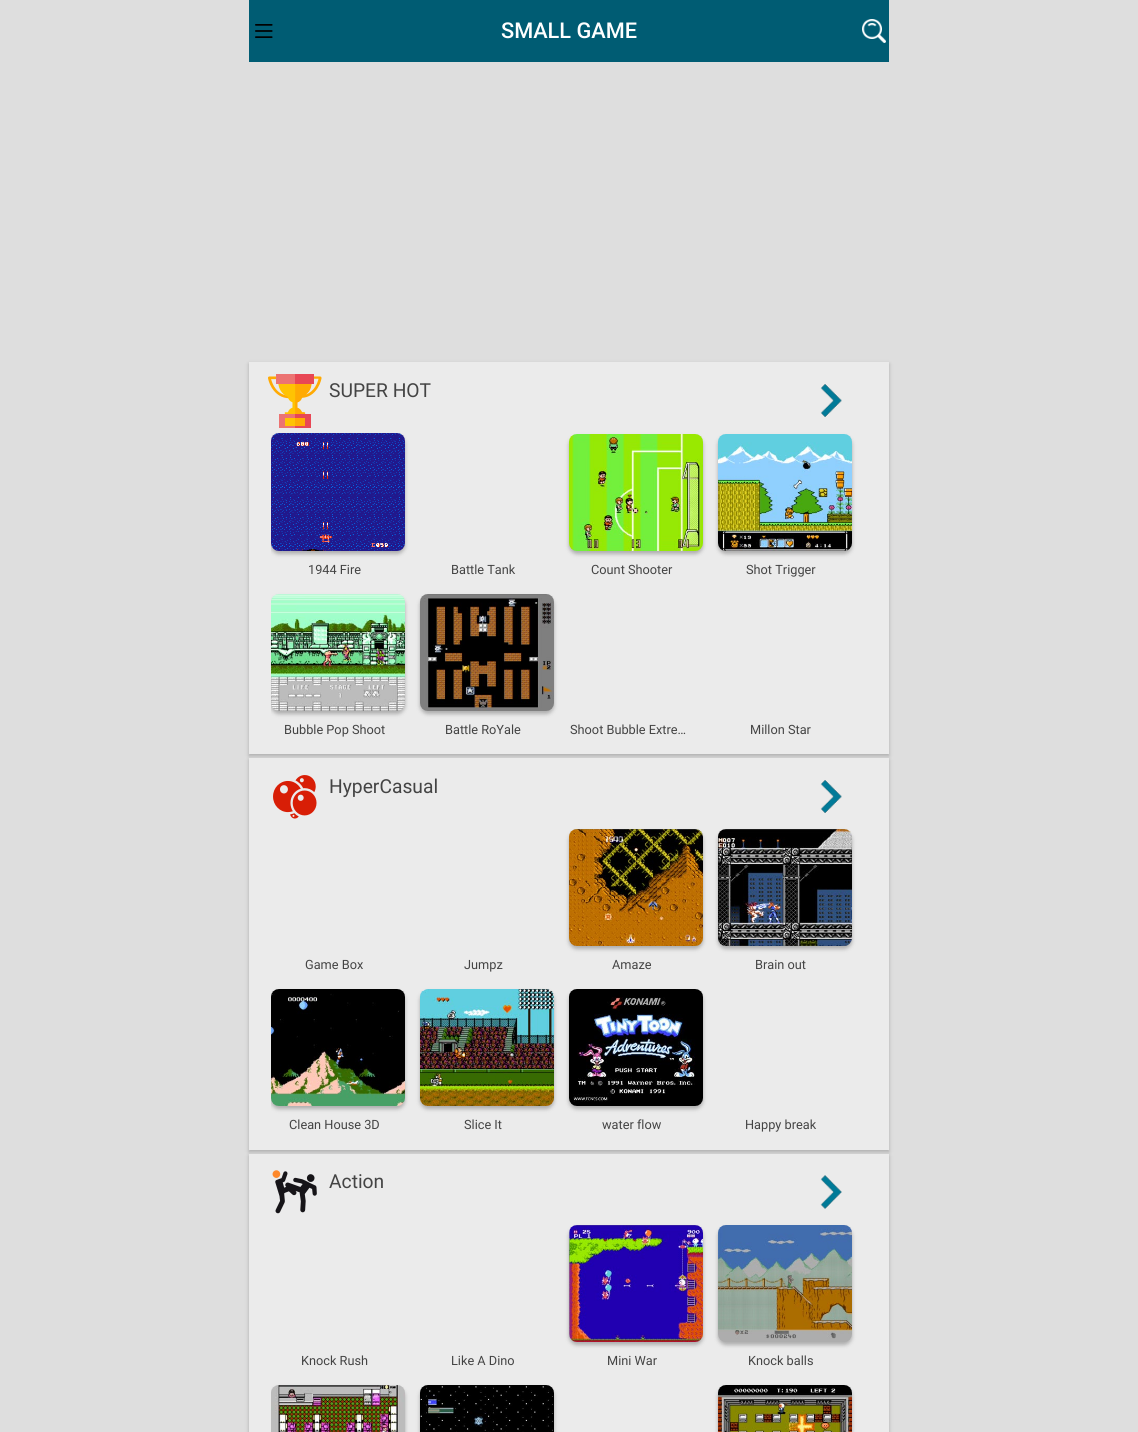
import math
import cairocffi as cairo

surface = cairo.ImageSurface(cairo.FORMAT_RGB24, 1138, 1432)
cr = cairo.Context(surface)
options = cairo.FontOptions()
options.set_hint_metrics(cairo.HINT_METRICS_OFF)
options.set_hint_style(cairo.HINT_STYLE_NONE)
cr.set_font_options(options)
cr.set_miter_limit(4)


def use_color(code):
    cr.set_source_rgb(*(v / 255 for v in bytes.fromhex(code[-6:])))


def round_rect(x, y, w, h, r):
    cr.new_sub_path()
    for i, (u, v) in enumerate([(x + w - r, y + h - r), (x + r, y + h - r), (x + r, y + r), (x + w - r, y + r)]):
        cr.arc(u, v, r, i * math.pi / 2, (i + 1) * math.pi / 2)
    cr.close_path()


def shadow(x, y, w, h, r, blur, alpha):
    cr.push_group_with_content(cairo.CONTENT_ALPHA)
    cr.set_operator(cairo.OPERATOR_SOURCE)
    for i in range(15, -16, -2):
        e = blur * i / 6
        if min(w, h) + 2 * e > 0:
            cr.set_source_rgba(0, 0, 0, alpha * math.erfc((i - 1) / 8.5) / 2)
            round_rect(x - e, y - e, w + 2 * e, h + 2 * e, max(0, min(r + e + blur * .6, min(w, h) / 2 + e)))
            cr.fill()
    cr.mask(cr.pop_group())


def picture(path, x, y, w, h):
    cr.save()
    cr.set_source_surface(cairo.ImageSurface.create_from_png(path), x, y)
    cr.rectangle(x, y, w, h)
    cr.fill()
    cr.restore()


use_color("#dedede")
cr.paint()
use_color("#005c73")
cr.rectangle(249, 0, 640, 62)
cr.fill()
picture("img1.png", 255, 24, 18, 14)
cr.select_font_face("Roboto Medium")
cr.set_font_size(21.75)
use_color("#ffffff")
cr.move_to(501, 38)
cr.show_text("SMALL GAME")
picture("img2.png", 862, 19, 24, 24)
use_color("#adadad")
shadow(249, 364, 640, 392, 0, 2, 1)
use_color("#ebebeb")
cr.rectangle(249, 362, 640, 392)
cr.fill()
picture("img3.png", 268, 374, 54, 54)
cr.select_font_face("Roboto")
cr.set_font_size(19.25)
use_color("#444444")
cr.move_to(329, 397)
cr.show_text("SUPER HOT")
picture("img4.png", 820, 384, 22, 33)
cr.save()
cr.rectangle(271, 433, 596, 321)
cr.clip()
use_color("#adadad")
shadow(271, 436, 134, 118, 8, 2, 1)
cr.restore()
picture("img5.png", 271, 433, 134, 118)
cr.set_font_size(12.75)
cr.move_to(308, 574)
cr.show_text("1944 Fire")
cr.move_to(451, 574)
cr.show_text("Battle Tank")
use_color("#adadad")
shadow(569, 437, 134, 117, 8, 2, 1)
picture("img6.png", 569, 434, 134, 117)
use_color("#444444")
cr.move_to(591, 574)
cr.show_text("Count Shooter")
use_color("#adadad")
shadow(718, 437, 134, 117, 8, 2, 1)
picture("img7.png", 718, 434, 134, 117)
use_color("#444444")
cr.move_to(746, 574)
cr.show_text("Shot Trigger")
cr.save()
cr.rectangle(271, 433, 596, 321)
cr.clip()
use_color("#adadad")
shadow(271, 597, 134, 117, 8, 2, 1)
cr.restore()
picture("img8.png", 271, 594, 134, 117)
cr.move_to(284, 734)
cr.show_text("Bubble Pop Shoot")
use_color("#adadad")
shadow(420, 597, 134, 117, 8, 2, 1)
picture("img9.png", 420, 594, 134, 117)
use_color("#444444")
cr.move_to(445, 734)
cr.show_text("Battle RoYale")
cr.move_to(570, 734)
cr.show_text("Shoot Bubble Extre…")
cr.move_to(750, 734)
cr.show_text("Millon Star")
use_color("#adadad")
shadow(249, 760, 640, 392, 0, 2, 1)
use_color("#ebebeb")
cr.rectangle(249, 758, 640, 392)
cr.fill()
picture("img10.png", 273, 775, 44, 44)
cr.set_font_size(19.25)
use_color("#444444")
cr.move_to(329, 793)
cr.show_text("HyperCasual")
picture("img11.png", 820, 780, 22, 33)
cr.set_font_size(12.75)
cr.move_to(305, 969)
cr.show_text("Game Box")
cr.move_to(464, 969)
cr.show_text("Jumpz")
use_color("#adadad")
shadow(569, 832, 134, 117, 8, 2, 1)
picture("img12.png", 569, 829, 134, 117)
use_color("#444444")
cr.move_to(612, 969)
cr.show_text("Amaze")
use_color("#adadad")
shadow(718, 832, 134, 117, 8, 2, 1)
picture("img13.png", 718, 829, 134, 117)
use_color("#444444")
cr.move_to(755, 969)
cr.show_text("Brain out")
cr.save()
cr.rectangle(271, 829, 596, 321)
cr.clip()
use_color("#adadad")
shadow(271, 992, 134, 117, 8, 2, 1)
cr.restore()
picture("img14.png", 271, 989, 134, 117)
cr.move_to(289, 1129)
cr.show_text("Clean House 3D")
use_color("#adadad")
shadow(420, 992, 134, 117, 8, 2, 1)
picture("img15.png", 420, 989, 134, 117)
use_color("#444444")
cr.move_to(464, 1129)
cr.show_text("Slice It")
use_color("#adadad")
shadow(569, 992, 134, 117, 8, 2, 1)
picture("img16.png", 569, 989, 134, 117)
use_color("#444444")
cr.move_to(602, 1129)
cr.show_text("water flow")
cr.move_to(745, 1129)
cr.show_text("Happy break")
use_color("#adadad")
shadow(249, 1156, 640, 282, 0, 2, 1)
use_color("#ebebeb")
cr.rectangle(249, 1154, 640, 278)
cr.fill()
picture("img17.png", 272, 1170, 45, 44)
cr.set_font_size(19.25)
use_color("#444444")
cr.move_to(329, 1188)
cr.show_text("Action")
picture("img18.png", 820, 1175, 22, 34)
cr.set_font_size(12.75)
cr.move_to(301, 1365)
cr.show_text("Knock Rush")
cr.move_to(451, 1365)
cr.show_text("Like A Dino")
use_color("#adadad")
shadow(569, 1228, 134, 117, 8, 2, 1)
picture("img19.png", 569, 1225, 134, 117)
use_color("#444444")
cr.move_to(607, 1365)
cr.show_text("Mini War")
use_color("#adadad")
shadow(718, 1228, 134, 117, 8, 2, 1)
picture("img20.png", 718, 1225, 134, 117)
use_color("#444444")
cr.move_to(748, 1365)
cr.show_text("Knock balls")
cr.save()
cr.rectangle(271, 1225, 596, 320)
cr.clip()
use_color("#adadad")
shadow(271, 1388, 134, 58, 8, 2, 1)
cr.restore()
picture("img21.png", 271, 1385, 134, 47)
use_color("#adadad")
shadow(420, 1388, 134, 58, 8, 2, 1)
picture("img22.png", 420, 1385, 134, 47)
shadow(718, 1388, 134, 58, 8, 2, 1)
picture("img23.png", 718, 1385, 134, 47)
surface.write_to_png("result.png")
